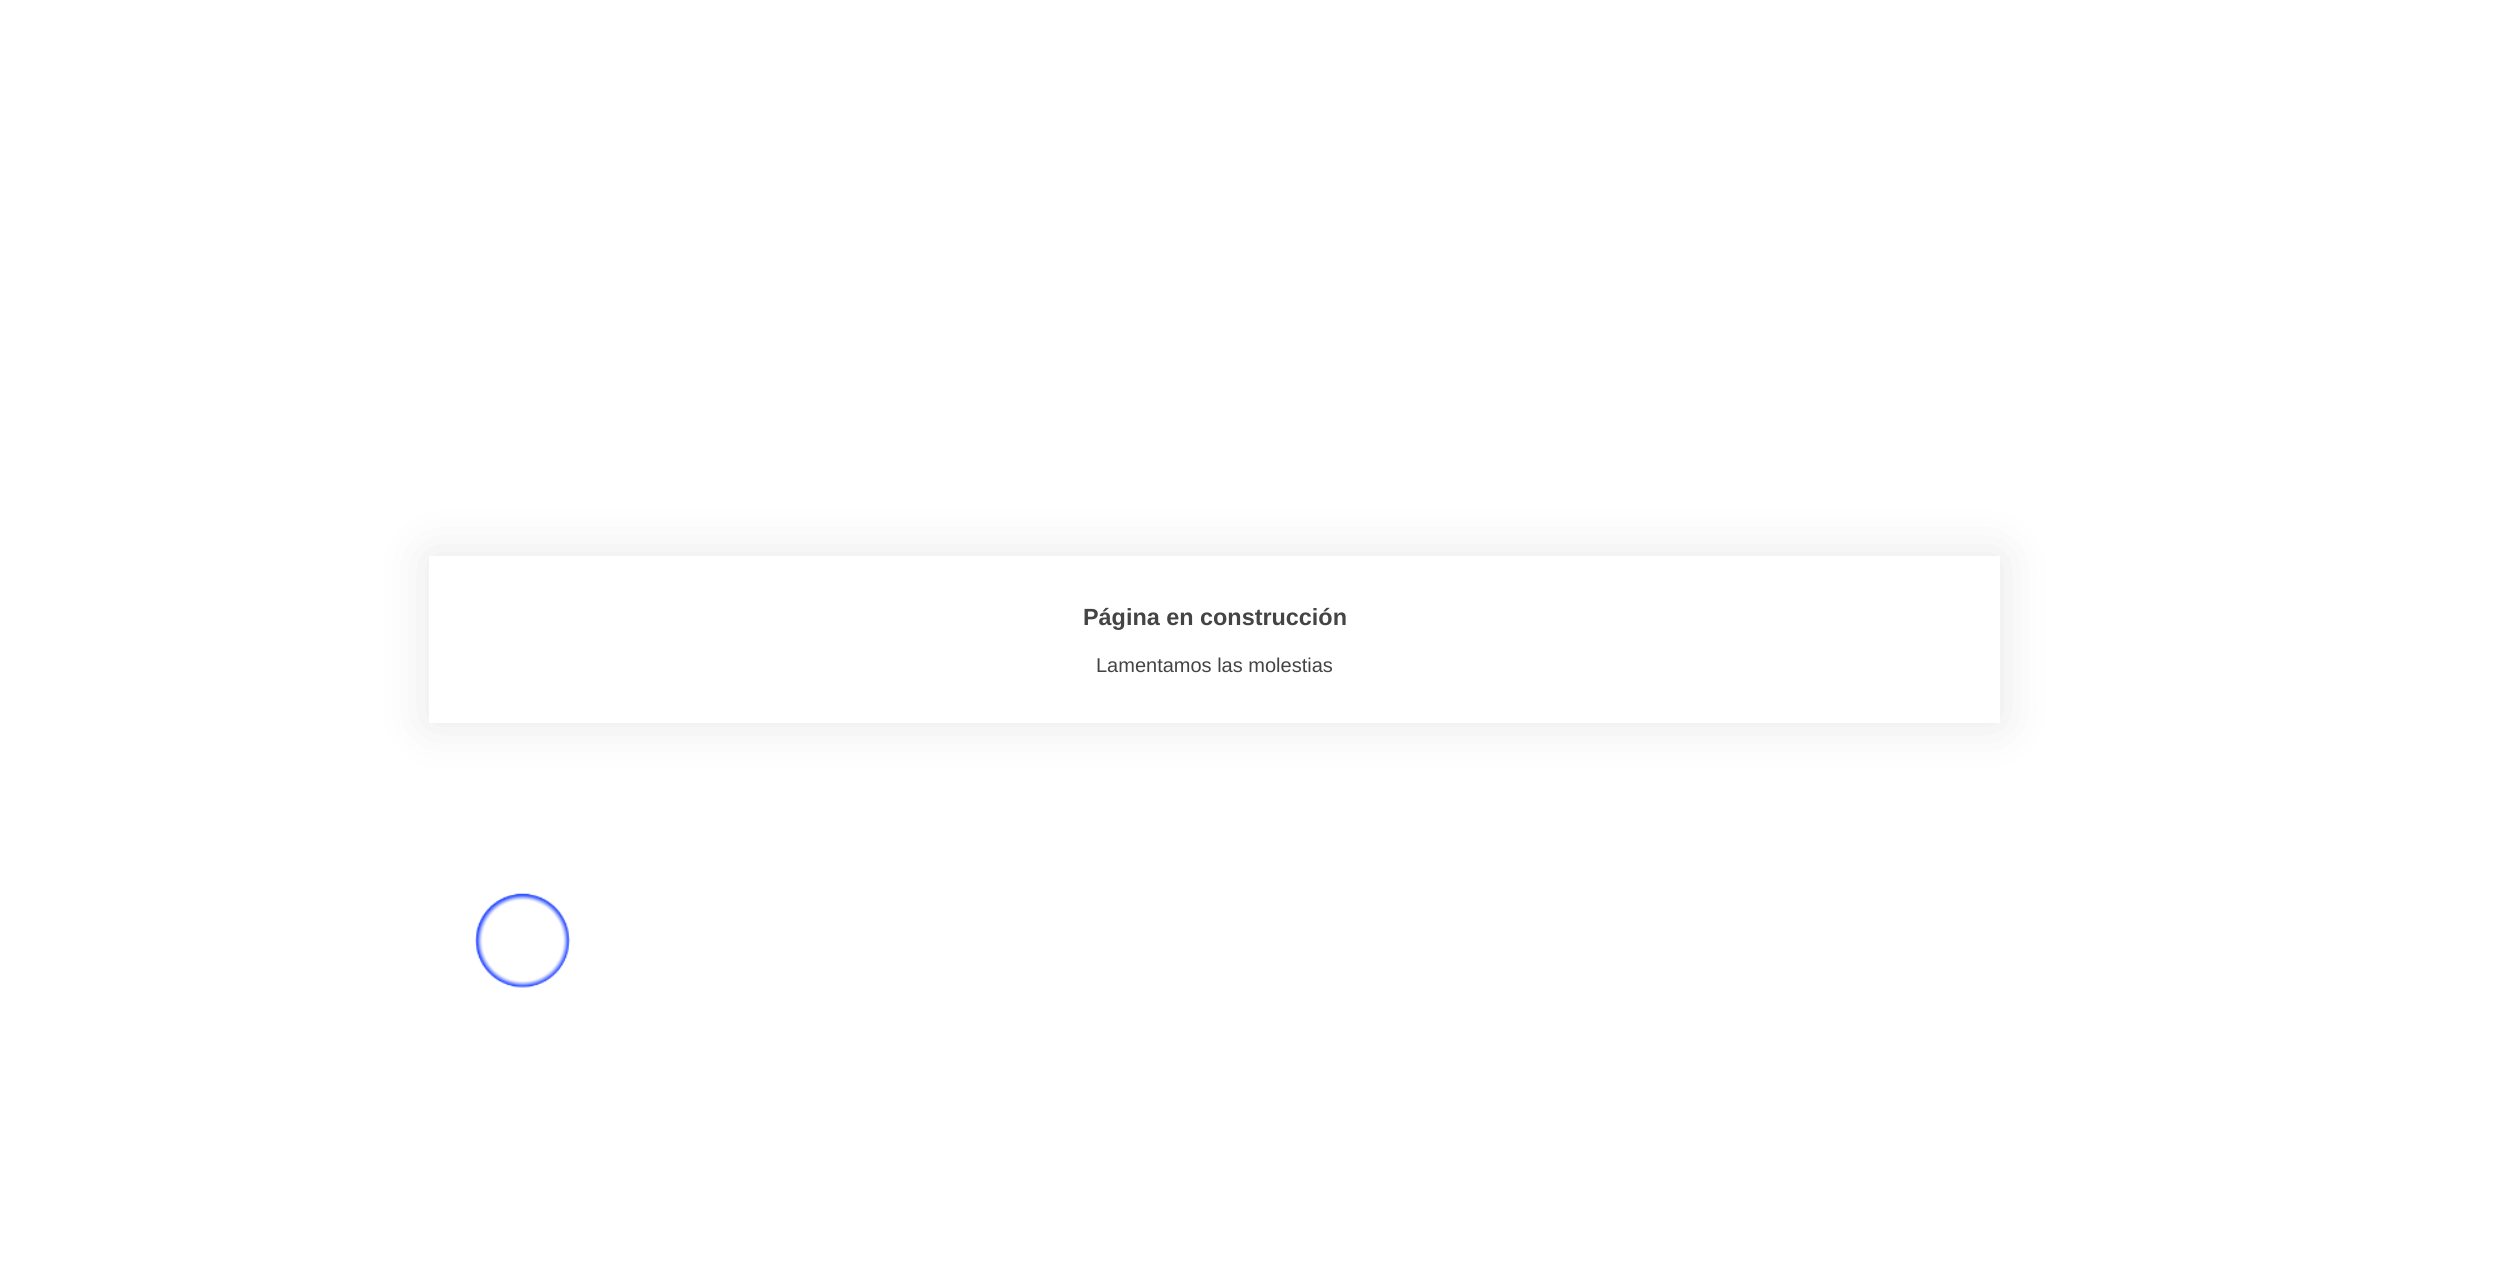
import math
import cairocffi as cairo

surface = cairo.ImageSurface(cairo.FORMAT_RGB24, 2500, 1277)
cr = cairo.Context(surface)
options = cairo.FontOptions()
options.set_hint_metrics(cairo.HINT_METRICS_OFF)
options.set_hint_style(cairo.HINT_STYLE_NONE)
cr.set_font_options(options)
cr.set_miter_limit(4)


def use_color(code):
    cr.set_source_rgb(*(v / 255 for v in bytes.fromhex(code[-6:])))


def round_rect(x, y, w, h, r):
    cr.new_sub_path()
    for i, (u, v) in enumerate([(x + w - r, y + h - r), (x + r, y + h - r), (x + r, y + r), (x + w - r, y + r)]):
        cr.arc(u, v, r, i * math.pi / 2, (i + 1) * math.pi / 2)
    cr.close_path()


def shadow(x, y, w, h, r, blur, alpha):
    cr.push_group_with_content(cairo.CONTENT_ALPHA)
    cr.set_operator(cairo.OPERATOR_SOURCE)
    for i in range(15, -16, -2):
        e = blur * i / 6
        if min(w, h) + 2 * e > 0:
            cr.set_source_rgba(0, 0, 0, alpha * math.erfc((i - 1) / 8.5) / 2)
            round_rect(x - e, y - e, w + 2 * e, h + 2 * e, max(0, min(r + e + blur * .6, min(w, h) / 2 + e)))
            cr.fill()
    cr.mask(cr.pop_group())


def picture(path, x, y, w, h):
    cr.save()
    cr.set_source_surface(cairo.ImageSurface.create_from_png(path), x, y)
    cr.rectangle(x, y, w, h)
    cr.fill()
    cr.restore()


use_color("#ffffff")
cr.paint()
use_color("#000000")
shadow(429, 556, 1571, 167, 0, 25, 0.1)
use_color("#ffffff")
cr.rectangle(429, 556, 1571, 167)
cr.fill()
cr.select_font_face("Liberation Sans", cairo.FONT_SLANT_NORMAL, cairo.FONT_WEIGHT_BOLD)
cr.set_font_size(23.4)
use_color("#444444")
cr.move_to(1083, 625)
cr.show_text("Página en construcción")
cr.select_font_face("Liberation Sans")
cr.set_font_size(20)
cr.move_to(1096, 672)
cr.show_text("Lamentamos las molestias")
picture("img1.png", 475, 893, 96, 95)
surface.write_to_png("result.png")
